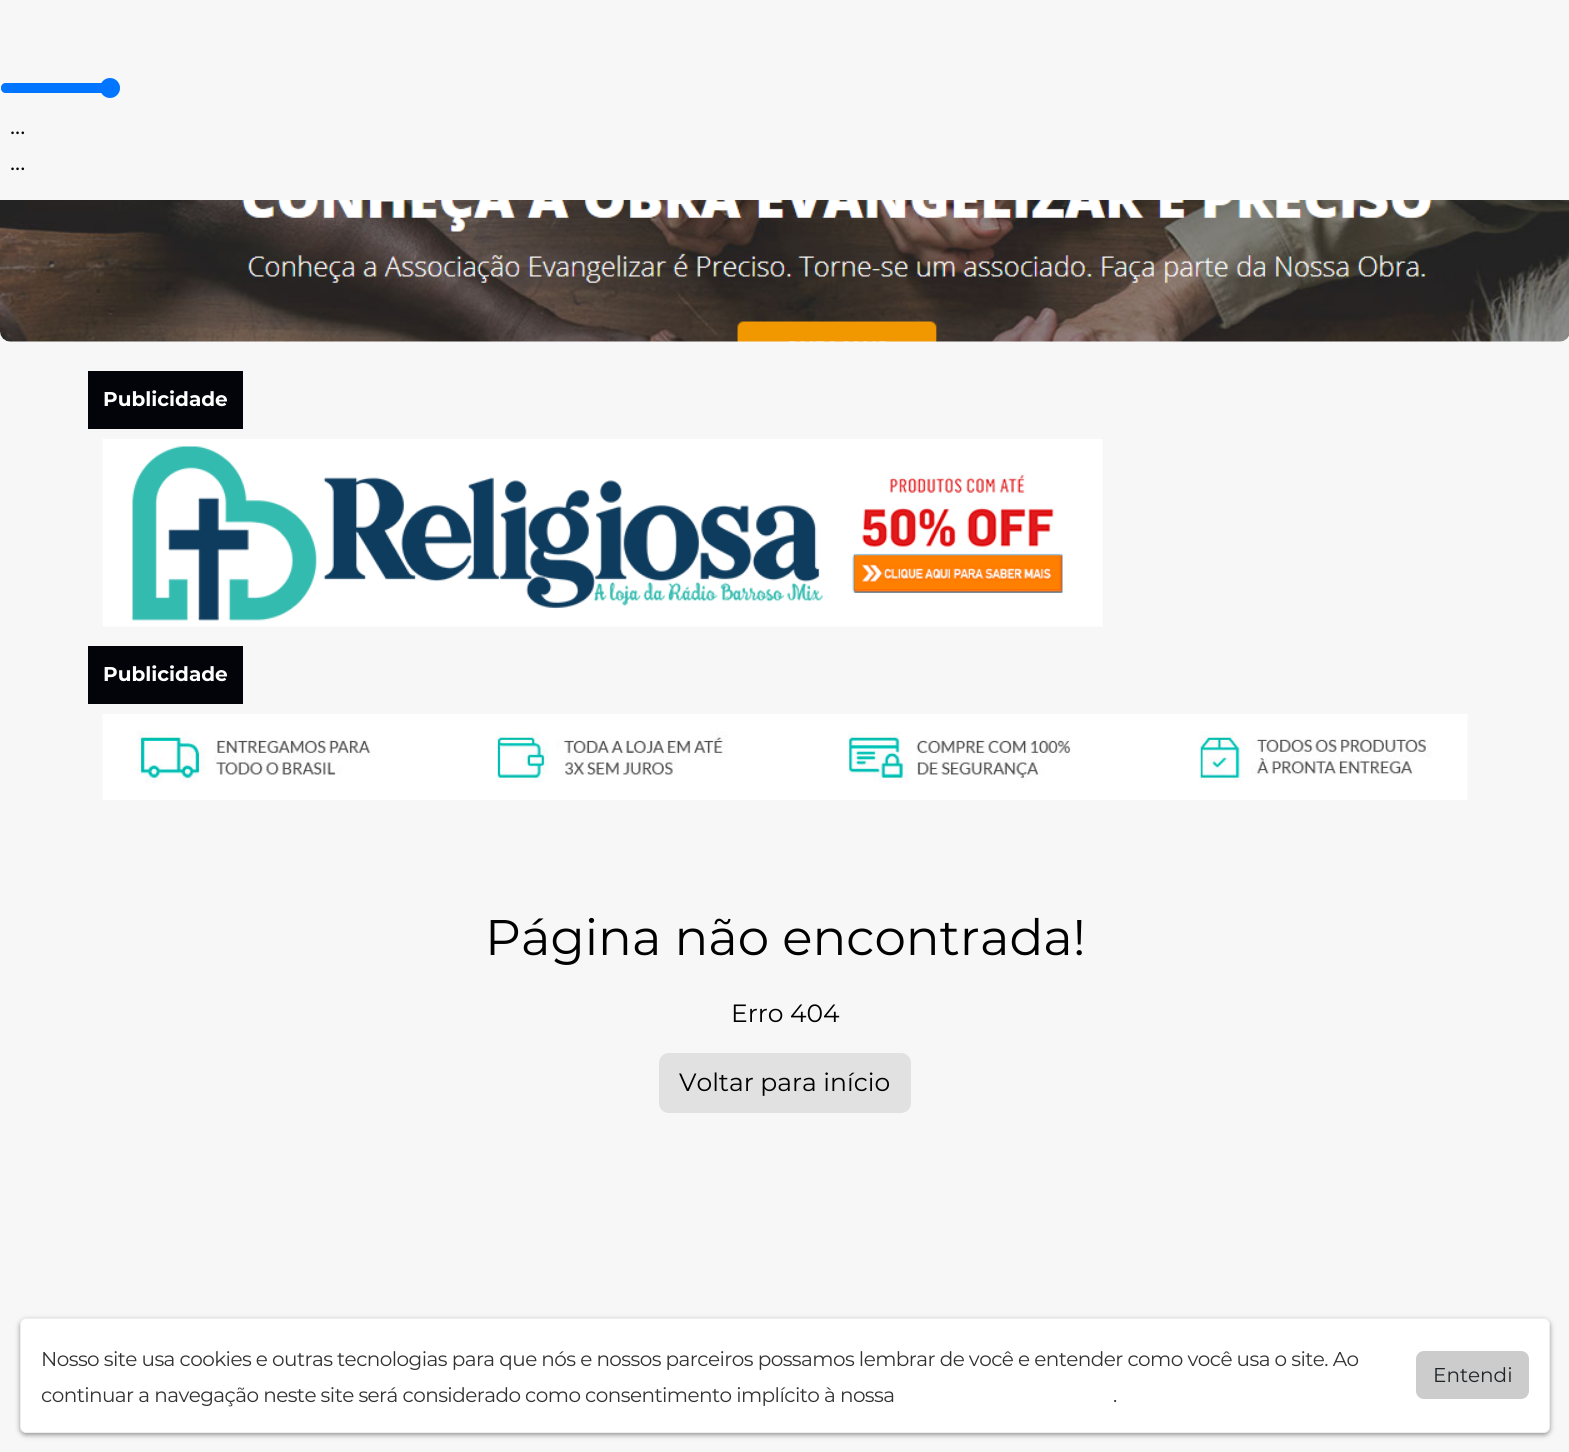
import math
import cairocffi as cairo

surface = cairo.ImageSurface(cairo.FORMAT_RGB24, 1569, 1452)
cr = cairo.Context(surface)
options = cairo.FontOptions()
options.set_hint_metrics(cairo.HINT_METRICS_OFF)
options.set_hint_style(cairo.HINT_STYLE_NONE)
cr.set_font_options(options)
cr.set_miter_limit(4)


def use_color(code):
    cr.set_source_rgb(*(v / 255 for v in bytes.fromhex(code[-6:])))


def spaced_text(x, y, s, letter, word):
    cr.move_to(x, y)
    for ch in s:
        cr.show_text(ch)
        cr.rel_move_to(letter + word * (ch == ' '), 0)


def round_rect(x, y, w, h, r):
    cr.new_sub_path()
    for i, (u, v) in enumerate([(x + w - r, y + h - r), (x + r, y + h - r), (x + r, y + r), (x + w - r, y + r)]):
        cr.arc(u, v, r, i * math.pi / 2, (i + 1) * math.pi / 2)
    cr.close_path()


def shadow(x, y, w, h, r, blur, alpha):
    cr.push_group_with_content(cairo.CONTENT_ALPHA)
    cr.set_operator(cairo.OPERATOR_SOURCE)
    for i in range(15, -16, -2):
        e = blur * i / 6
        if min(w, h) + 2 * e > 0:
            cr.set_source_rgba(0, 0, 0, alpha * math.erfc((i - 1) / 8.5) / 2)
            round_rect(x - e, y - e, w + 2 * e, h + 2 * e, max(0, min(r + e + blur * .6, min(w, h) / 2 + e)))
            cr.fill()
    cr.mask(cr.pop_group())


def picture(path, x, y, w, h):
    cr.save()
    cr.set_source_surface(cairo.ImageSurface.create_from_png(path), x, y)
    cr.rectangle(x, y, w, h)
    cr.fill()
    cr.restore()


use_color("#f7f7f7")
cr.paint()
round_rect(1.5, 83.5, 118, 9, 4.5)
use_color("#b2b2b2")
cr.set_line_width(1)
cr.stroke()
use_color("#0075ff")
cr.new_path()
cr.move_to(6, 83)
cr.line_to(110, 83)
cr.line_to(110, 93)
cr.line_to(6, 93)
cr.curve_to(3, 93, 1, 91, 1, 88)
cr.curve_to(1, 85, 3, 83, 6, 83)
cr.close_path()
cr.fill()
cr.arc(110, 88, 10, 0, 2 * math.pi)
cr.fill()
cr.select_font_face("Montserrat")
cr.set_font_size(24)
use_color("#03040a")
cr.move_to(10, 134)
cr.show_text("...")
cr.move_to(10, 170)
cr.show_text("...")
picture("img1.png", 0, 200, 1569, 142)
cr.rectangle(88, 371, 155, 58)
cr.fill()
cr.select_font_face("Montserrat", cairo.FONT_SLANT_NORMAL, cairo.FONT_WEIGHT_BOLD)
cr.set_font_size(20)
use_color("#ffffff")
cr.move_to(103, 406)
cr.show_text("Publicidade")
picture("img2.png", 102, 439, 1001, 188)
use_color("#03040a")
cr.rectangle(88, 646, 155, 58)
cr.fill()
use_color("#ffffff")
cr.move_to(103, 681)
cr.show_text("Publicidade")
picture("img3.png", 102, 714, 1366, 86)
cr.select_font_face("Montserrat")
cr.set_font_size(50)
use_color("#000000")
cr.move_to(485, 955)
cr.show_text("Página não encontrada!")
cr.set_font_size(25)
cr.move_to(731, 1022)
cr.show_text("Erro 404")
use_color("#e1e1e1")
round_rect(659, 1053, 252, 60, 10)
cr.fill()
use_color("#000000")
cr.move_to(679, 1091)
cr.show_text("Voltar para início")
use_color("#000000")
shadow(20, 1320, 1530, 115, 6, 2.5, 0.4)
use_color("#ffffff")
round_rect(20.5, 1318.5, 1529, 114, 5.5)
cr.fill_preserve()
use_color("#eeeeee")
cr.stroke()
cr.set_font_size(20)
use_color("#333333")
spaced_text(41, 1366, "Nosso site usa cookies e outras tecnologias para que nós e nossos parceiros possamos lembrar de você e entender como você usa o site. Ao", -0.56, 0)
spaced_text(41, 1402, "continuar a navegação neste site será considerado como consentimento implícito à nossa", -0.56, 0)
spaced_text(1113, 1402, ".", -0.56, 0)
use_color("#cccccc")
round_rect(1416, 1351, 113, 48, 8)
cr.fill()
use_color("#212529")
cr.move_to(1433, 1382)
cr.show_text("Entendi")
surface.write_to_png("result.png")
